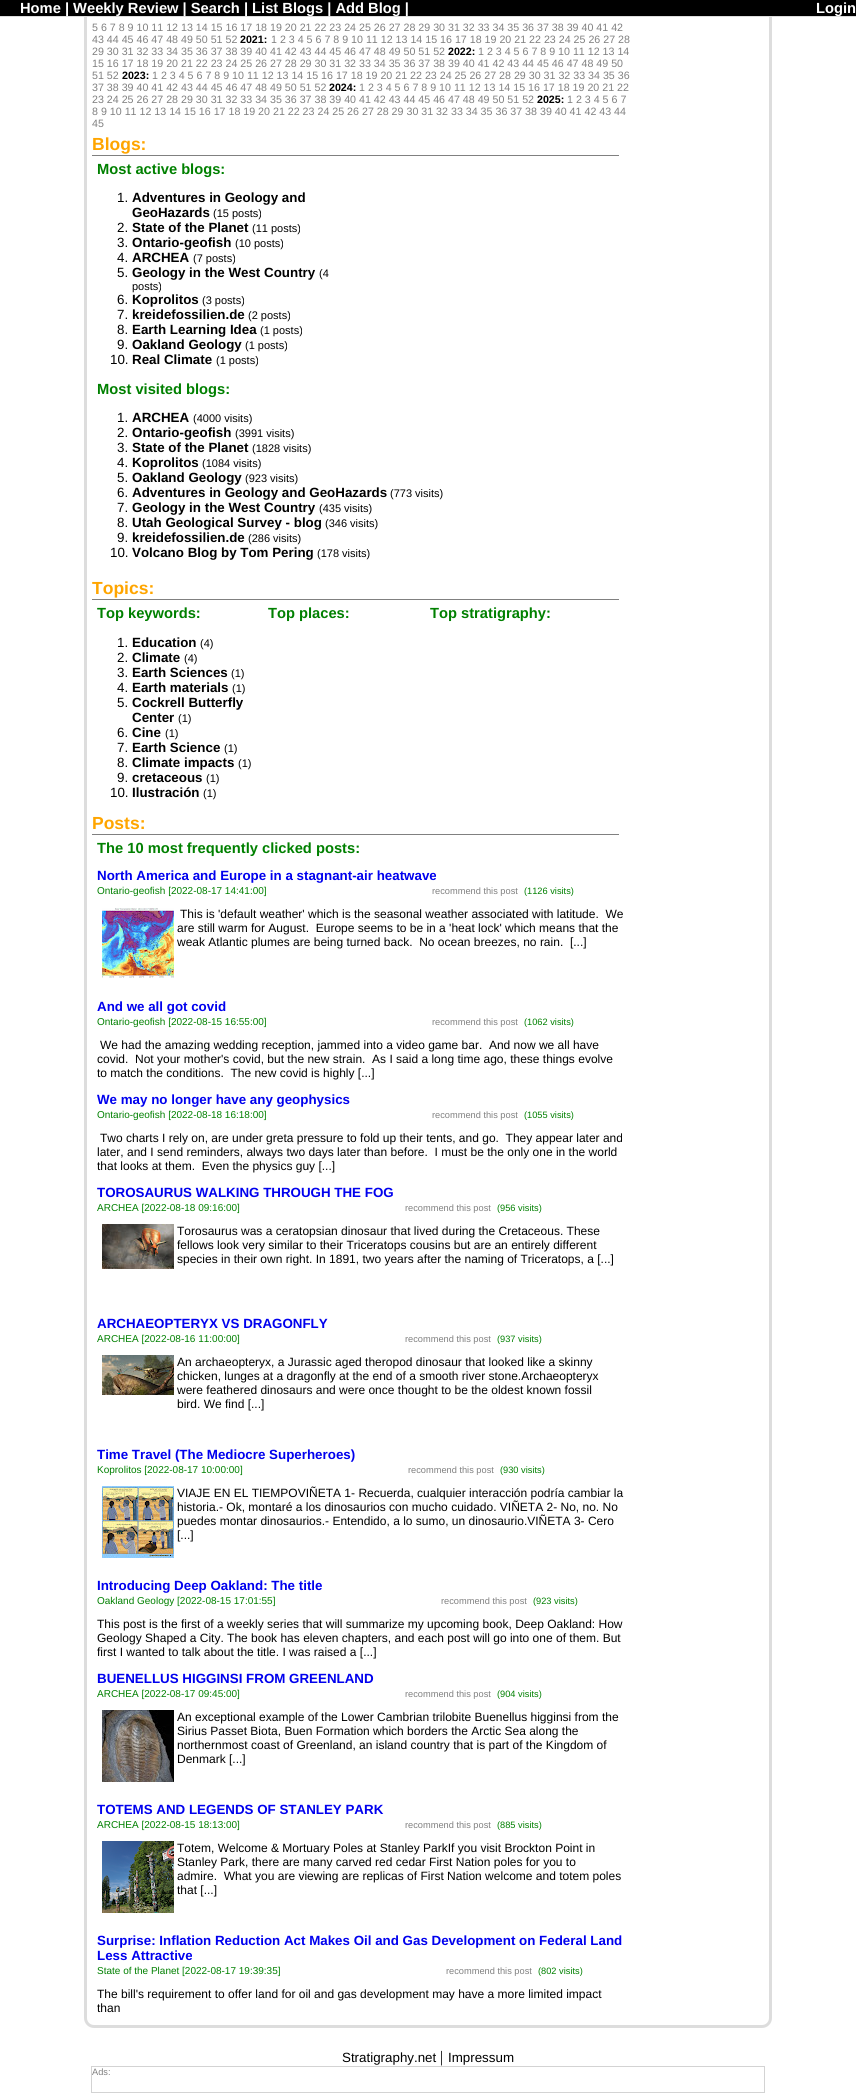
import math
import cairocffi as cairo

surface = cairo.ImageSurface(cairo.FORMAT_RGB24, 856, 2099)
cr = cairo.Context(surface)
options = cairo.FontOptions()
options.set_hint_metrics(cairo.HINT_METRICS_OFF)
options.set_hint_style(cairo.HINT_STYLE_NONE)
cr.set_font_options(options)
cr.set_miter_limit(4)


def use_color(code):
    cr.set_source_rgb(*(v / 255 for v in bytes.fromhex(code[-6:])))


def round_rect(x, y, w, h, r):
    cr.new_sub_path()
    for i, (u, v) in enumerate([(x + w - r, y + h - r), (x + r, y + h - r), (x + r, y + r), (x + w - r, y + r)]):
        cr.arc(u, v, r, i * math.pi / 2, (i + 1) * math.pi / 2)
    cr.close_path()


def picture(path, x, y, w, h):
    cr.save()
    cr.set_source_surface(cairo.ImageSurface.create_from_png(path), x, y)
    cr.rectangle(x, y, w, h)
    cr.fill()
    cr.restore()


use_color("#ffffff")
cr.paint()
round_rect(85.5, -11.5, 685, 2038, 8.5)
use_color("#dddddd")
cr.set_line_width(3)
cr.stroke()
use_color("#000000")
cr.rectangle(0, 0, 856, 16)
cr.fill()
use_color("#dddddd")
cr.rectangle(0, 16, 856, 1)
cr.fill()
cr.select_font_face("Liberation Sans", cairo.FONT_SLANT_NORMAL, cairo.FONT_WEIGHT_BOLD)
cr.set_font_size(14.7)
use_color("#ffffff")
cr.move_to(20, 13)
cr.show_text("Home | Weekly Review | Search | List Blogs | Add Blog |")
cr.move_to(816, 13)
cr.show_text("Login")
cr.select_font_face("Liberation Sans")
cr.set_font_size(10.67)
use_color("#808080")
cr.move_to(92, 31)
cr.show_text("5 6 7 8 9 10 11 12 13 14 15 16 17 18 19 20 21 22 23 24 25 26 27 28 29 30 31 32 33 34 35 36 37 38 39 40 41 42")
cr.move_to(92, 43)
cr.show_text("43 44 45 46 47 48 49 50 51 52")
cr.select_font_face("Liberation Sans", cairo.FONT_SLANT_NORMAL, cairo.FONT_WEIGHT_BOLD)
use_color("#000000")
cr.move_to(240, 43)
cr.show_text("2021:")
cr.select_font_face("Liberation Sans")
use_color("#808080")
cr.move_to(271, 43)
cr.show_text("1 2 3 4 5 6 7 8 9 10 11 12 13 14 15 16 17 18 19 20 21 22 23 24 25 26 27 28")
cr.move_to(92, 55)
cr.show_text("29 30 31 32 33 34 35 36 37 38 39 40 41 42 43 44 45 46 47 48 49 50 51 52")
cr.select_font_face("Liberation Sans", cairo.FONT_SLANT_NORMAL, cairo.FONT_WEIGHT_BOLD)
use_color("#000000")
cr.move_to(448, 55)
cr.show_text("2022:")
cr.select_font_face("Liberation Sans")
use_color("#808080")
cr.move_to(478, 55)
cr.show_text("1 2 3 4 5 6 7 8 9 10 11 12 13 14")
cr.move_to(92, 67)
cr.show_text("15 16 17 18 19 20 21 22 23 24 25 26 27 28 29 30 31 32 33 34 35 36 37 38 39 40 41 42 43 44 45 46 47 48 49 50")
cr.move_to(92, 79)
cr.show_text("51 52")
cr.select_font_face("Liberation Sans", cairo.FONT_SLANT_NORMAL, cairo.FONT_WEIGHT_BOLD)
use_color("#000000")
cr.move_to(122, 79)
cr.show_text("2023:")
cr.select_font_face("Liberation Sans")
use_color("#808080")
cr.move_to(152, 79)
cr.show_text("1 2 3 4 5 6 7 8 9 10 11 12 13 14 15 16 17 18 19 20 21 22 23 24 25 26 27 28 29 30 31 32 33 34 35 36")
cr.move_to(92, 91)
cr.show_text("37 38 39 40 41 42 43 44 45 46 47 48 49 50 51 52")
cr.select_font_face("Liberation Sans", cairo.FONT_SLANT_NORMAL, cairo.FONT_WEIGHT_BOLD)
use_color("#000000")
cr.move_to(329, 91)
cr.show_text("2024:")
cr.select_font_face("Liberation Sans")
use_color("#808080")
cr.move_to(359, 91)
cr.show_text("1 2 3 4 5 6 7 8 9 10 11 12 13 14 15 16 17 18 19 20 21 22")
cr.move_to(92, 103)
cr.show_text("23 24 25 26 27 28 29 30 31 32 33 34 35 36 37 38 39 40 41 42 43 44 45 46 47 48 49 50 51 52")
cr.select_font_face("Liberation Sans", cairo.FONT_SLANT_NORMAL, cairo.FONT_WEIGHT_BOLD)
use_color("#000000")
cr.move_to(537, 103)
cr.show_text("2025:")
cr.select_font_face("Liberation Sans")
use_color("#808080")
cr.move_to(567, 103)
cr.show_text("1 2 3 4 5 6 7")
cr.move_to(92, 115)
cr.show_text("8 9 10 11 12 13 14 15 16 17 18 19 20 21 22 23 24 25 26 27 28 29 30 31 32 33 34 35 36 37 38 39 40 41 42 43 44")
cr.move_to(92, 127)
cr.show_text("45")
cr.rectangle(92, 155, 527, 1)
cr.fill()
cr.select_font_face("Liberation Sans", cairo.FONT_SLANT_NORMAL, cairo.FONT_WEIGHT_BOLD)
cr.set_font_size(17.5)
use_color("#ffa500")
cr.move_to(92, 150)
cr.show_text("Blogs:")
cr.set_font_size(14.7)
use_color("#008000")
cr.move_to(97, 174)
cr.show_text("Most active blogs:")
cr.select_font_face("Liberation Sans")
cr.set_font_size(13.35)
use_color("#000000")
cr.move_to(117, 202)
cr.show_text("1.")
cr.select_font_face("Liberation Sans", cairo.FONT_SLANT_NORMAL, cairo.FONT_WEIGHT_BOLD)
cr.move_to(132, 202)
cr.show_text("Adventures in Geology and")
cr.move_to(132, 217)
cr.show_text("GeoHazards")
cr.select_font_face("Liberation Sans")
cr.set_font_size(11)
cr.move_to(213, 217)
cr.show_text("(15 posts)")
cr.set_font_size(13.35)
cr.move_to(117, 232)
cr.show_text("2.")
cr.select_font_face("Liberation Sans", cairo.FONT_SLANT_NORMAL, cairo.FONT_WEIGHT_BOLD)
cr.move_to(132, 232)
cr.show_text("State of the Planet")
cr.select_font_face("Liberation Sans")
cr.set_font_size(11)
cr.move_to(252, 232)
cr.show_text("(11 posts)")
cr.set_font_size(13.35)
cr.move_to(117, 247)
cr.show_text("3.")
cr.select_font_face("Liberation Sans", cairo.FONT_SLANT_NORMAL, cairo.FONT_WEIGHT_BOLD)
cr.move_to(132, 247)
cr.show_text("Ontario-geofish")
cr.select_font_face("Liberation Sans")
cr.set_font_size(11)
cr.move_to(235, 247)
cr.show_text("(10 posts)")
cr.set_font_size(13.35)
cr.move_to(117, 262)
cr.show_text("4.")
cr.select_font_face("Liberation Sans", cairo.FONT_SLANT_NORMAL, cairo.FONT_WEIGHT_BOLD)
cr.move_to(132, 262)
cr.show_text("ARCHEA")
cr.select_font_face("Liberation Sans")
cr.set_font_size(11)
cr.move_to(193, 262)
cr.show_text("(7 posts)")
cr.set_font_size(13.35)
cr.move_to(117, 277)
cr.show_text("5.")
cr.select_font_face("Liberation Sans", cairo.FONT_SLANT_NORMAL, cairo.FONT_WEIGHT_BOLD)
cr.move_to(132, 277)
cr.show_text("Geology in the West Country")
cr.select_font_face("Liberation Sans")
cr.set_font_size(11)
cr.move_to(319, 277)
cr.show_text("(4")
cr.move_to(132, 290)
cr.show_text("posts)")
cr.set_font_size(13.35)
cr.move_to(117, 304)
cr.show_text("6.")
cr.select_font_face("Liberation Sans", cairo.FONT_SLANT_NORMAL, cairo.FONT_WEIGHT_BOLD)
cr.move_to(132, 304)
cr.show_text("Koprolitos")
cr.select_font_face("Liberation Sans")
cr.set_font_size(11)
cr.move_to(202, 304)
cr.show_text("(3 posts)")
cr.set_font_size(13.35)
cr.move_to(117, 319)
cr.show_text("7.")
cr.select_font_face("Liberation Sans", cairo.FONT_SLANT_NORMAL, cairo.FONT_WEIGHT_BOLD)
cr.move_to(132, 319)
cr.show_text("kreidefossilien.de")
cr.select_font_face("Liberation Sans")
cr.set_font_size(11)
cr.move_to(248, 319)
cr.show_text("(2 posts)")
cr.set_font_size(13.35)
cr.move_to(117, 334)
cr.show_text("8.")
cr.select_font_face("Liberation Sans", cairo.FONT_SLANT_NORMAL, cairo.FONT_WEIGHT_BOLD)
cr.move_to(132, 334)
cr.show_text("Earth Learning Idea")
cr.select_font_face("Liberation Sans")
cr.set_font_size(11)
cr.move_to(260, 334)
cr.show_text("(1 posts)")
cr.set_font_size(13.35)
cr.move_to(117, 349)
cr.show_text("9.")
cr.select_font_face("Liberation Sans", cairo.FONT_SLANT_NORMAL, cairo.FONT_WEIGHT_BOLD)
cr.move_to(132, 349)
cr.show_text("Oakland Geology")
cr.select_font_face("Liberation Sans")
cr.set_font_size(11)
cr.move_to(245, 349)
cr.show_text("(1 posts)")
cr.set_font_size(13.35)
cr.move_to(110, 364)
cr.show_text("10.")
cr.select_font_face("Liberation Sans", cairo.FONT_SLANT_NORMAL, cairo.FONT_WEIGHT_BOLD)
cr.move_to(132, 364)
cr.show_text("Real Climate")
cr.select_font_face("Liberation Sans")
cr.set_font_size(11)
cr.move_to(216, 364)
cr.show_text("(1 posts)")
cr.select_font_face("Liberation Sans", cairo.FONT_SLANT_NORMAL, cairo.FONT_WEIGHT_BOLD)
cr.set_font_size(14.7)
use_color("#008000")
cr.move_to(97, 394)
cr.show_text("Most visited blogs:")
cr.select_font_face("Liberation Sans")
cr.set_font_size(13.35)
use_color("#000000")
cr.move_to(117, 422)
cr.show_text("1.")
cr.select_font_face("Liberation Sans", cairo.FONT_SLANT_NORMAL, cairo.FONT_WEIGHT_BOLD)
cr.move_to(132, 422)
cr.show_text("ARCHEA")
cr.select_font_face("Liberation Sans")
cr.set_font_size(11)
cr.move_to(193, 422)
cr.show_text("(4000 visits)")
cr.set_font_size(13.35)
cr.move_to(117, 437)
cr.show_text("2.")
cr.select_font_face("Liberation Sans", cairo.FONT_SLANT_NORMAL, cairo.FONT_WEIGHT_BOLD)
cr.move_to(132, 437)
cr.show_text("Ontario-geofish")
cr.select_font_face("Liberation Sans")
cr.set_font_size(11)
cr.move_to(235, 437)
cr.show_text("(3991 visits)")
cr.set_font_size(13.35)
cr.move_to(117, 452)
cr.show_text("3.")
cr.select_font_face("Liberation Sans", cairo.FONT_SLANT_NORMAL, cairo.FONT_WEIGHT_BOLD)
cr.move_to(132, 452)
cr.show_text("State of the Planet")
cr.select_font_face("Liberation Sans")
cr.set_font_size(11)
cr.move_to(252, 452)
cr.show_text("(1828 visits)")
cr.set_font_size(13.35)
cr.move_to(117, 467)
cr.show_text("4.")
cr.select_font_face("Liberation Sans", cairo.FONT_SLANT_NORMAL, cairo.FONT_WEIGHT_BOLD)
cr.move_to(132, 467)
cr.show_text("Koprolitos")
cr.select_font_face("Liberation Sans")
cr.set_font_size(11)
cr.move_to(202, 467)
cr.show_text("(1084 visits)")
cr.set_font_size(13.35)
cr.move_to(117, 482)
cr.show_text("5.")
cr.select_font_face("Liberation Sans", cairo.FONT_SLANT_NORMAL, cairo.FONT_WEIGHT_BOLD)
cr.move_to(132, 482)
cr.show_text("Oakland Geology")
cr.select_font_face("Liberation Sans")
cr.set_font_size(11)
cr.move_to(245, 482)
cr.show_text("(923 visits)")
cr.set_font_size(13.35)
cr.move_to(117, 497)
cr.show_text("6.")
cr.select_font_face("Liberation Sans", cairo.FONT_SLANT_NORMAL, cairo.FONT_WEIGHT_BOLD)
cr.move_to(132, 497)
cr.show_text("Adventures in Geology and GeoHazards")
cr.select_font_face("Liberation Sans")
cr.set_font_size(11)
cr.move_to(390, 497)
cr.show_text("(773 visits)")
cr.set_font_size(13.35)
cr.move_to(117, 512)
cr.show_text("7.")
cr.select_font_face("Liberation Sans", cairo.FONT_SLANT_NORMAL, cairo.FONT_WEIGHT_BOLD)
cr.move_to(132, 512)
cr.show_text("Geology in the West Country")
cr.select_font_face("Liberation Sans")
cr.set_font_size(11)
cr.move_to(319, 512)
cr.show_text("(435 visits)")
cr.set_font_size(13.35)
cr.move_to(117, 527)
cr.show_text("8.")
cr.select_font_face("Liberation Sans", cairo.FONT_SLANT_NORMAL, cairo.FONT_WEIGHT_BOLD)
cr.move_to(132, 527)
cr.show_text("Utah Geological Survey - blog")
cr.select_font_face("Liberation Sans")
cr.set_font_size(11)
cr.move_to(325, 527)
cr.show_text("(346 visits)")
cr.set_font_size(13.35)
cr.move_to(117, 542)
cr.show_text("9.")
cr.select_font_face("Liberation Sans", cairo.FONT_SLANT_NORMAL, cairo.FONT_WEIGHT_BOLD)
cr.move_to(132, 542)
cr.show_text("kreidefossilien.de")
cr.select_font_face("Liberation Sans")
cr.set_font_size(11)
cr.move_to(248, 542)
cr.show_text("(286 visits)")
cr.set_font_size(13.35)
cr.move_to(110, 557)
cr.show_text("10.")
cr.select_font_face("Liberation Sans", cairo.FONT_SLANT_NORMAL, cairo.FONT_WEIGHT_BOLD)
cr.move_to(132, 557)
cr.show_text("Volcano Blog by Tom Pering")
cr.select_font_face("Liberation Sans")
cr.set_font_size(11)
cr.move_to(317, 557)
cr.show_text("(178 visits)")
use_color("#808080")
cr.rectangle(92, 599, 527, 1)
cr.fill()
cr.select_font_face("Liberation Sans", cairo.FONT_SLANT_NORMAL, cairo.FONT_WEIGHT_BOLD)
cr.set_font_size(17.5)
use_color("#ffa500")
cr.move_to(92, 594)
cr.show_text("Topics:")
cr.set_font_size(14.7)
use_color("#008000")
cr.move_to(97, 618)
cr.show_text("Top keywords:")
cr.select_font_face("Liberation Sans")
cr.set_font_size(13.35)
use_color("#000000")
cr.move_to(117, 647)
cr.show_text("1.")
cr.select_font_face("Liberation Sans", cairo.FONT_SLANT_NORMAL, cairo.FONT_WEIGHT_BOLD)
cr.move_to(132, 647)
cr.show_text("Education")
cr.select_font_face("Liberation Sans")
cr.set_font_size(11)
cr.move_to(200, 647)
cr.show_text("(4)")
cr.set_font_size(13.35)
cr.move_to(117, 662)
cr.show_text("2.")
cr.select_font_face("Liberation Sans", cairo.FONT_SLANT_NORMAL, cairo.FONT_WEIGHT_BOLD)
cr.move_to(132, 662)
cr.show_text("Climate")
cr.select_font_face("Liberation Sans")
cr.set_font_size(11)
cr.move_to(184, 662)
cr.show_text("(4)")
cr.set_font_size(13.35)
cr.move_to(117, 677)
cr.show_text("3.")
cr.select_font_face("Liberation Sans", cairo.FONT_SLANT_NORMAL, cairo.FONT_WEIGHT_BOLD)
cr.move_to(132, 677)
cr.show_text("Earth Sciences")
cr.select_font_face("Liberation Sans")
cr.set_font_size(11)
cr.move_to(231, 677)
cr.show_text("(1)")
cr.set_font_size(13.35)
cr.move_to(117, 692)
cr.show_text("4.")
cr.select_font_face("Liberation Sans", cairo.FONT_SLANT_NORMAL, cairo.FONT_WEIGHT_BOLD)
cr.move_to(132, 692)
cr.show_text("Earth materials")
cr.select_font_face("Liberation Sans")
cr.set_font_size(11)
cr.move_to(232, 692)
cr.show_text("(1)")
cr.set_font_size(13.35)
cr.move_to(117, 707)
cr.show_text("5.")
cr.select_font_face("Liberation Sans", cairo.FONT_SLANT_NORMAL, cairo.FONT_WEIGHT_BOLD)
cr.move_to(132, 707)
cr.show_text("Cockrell Butterfly")
cr.move_to(132, 722)
cr.show_text("Center")
cr.select_font_face("Liberation Sans")
cr.set_font_size(11)
cr.move_to(178, 722)
cr.show_text("(1)")
cr.set_font_size(13.35)
cr.move_to(117, 737)
cr.show_text("6.")
cr.select_font_face("Liberation Sans", cairo.FONT_SLANT_NORMAL, cairo.FONT_WEIGHT_BOLD)
cr.move_to(132, 737)
cr.show_text("Cine")
cr.select_font_face("Liberation Sans")
cr.set_font_size(11)
cr.move_to(165, 737)
cr.show_text("(1)")
cr.set_font_size(13.35)
cr.move_to(117, 752)
cr.show_text("7.")
cr.select_font_face("Liberation Sans", cairo.FONT_SLANT_NORMAL, cairo.FONT_WEIGHT_BOLD)
cr.move_to(132, 752)
cr.show_text("Earth Science")
cr.select_font_face("Liberation Sans")
cr.set_font_size(11)
cr.move_to(224, 752)
cr.show_text("(1)")
cr.set_font_size(13.35)
cr.move_to(117, 767)
cr.show_text("8.")
cr.select_font_face("Liberation Sans", cairo.FONT_SLANT_NORMAL, cairo.FONT_WEIGHT_BOLD)
cr.move_to(132, 767)
cr.show_text("Climate impacts")
cr.select_font_face("Liberation Sans")
cr.set_font_size(11)
cr.move_to(238, 767)
cr.show_text("(1)")
cr.set_font_size(13.35)
cr.move_to(117, 782)
cr.show_text("9.")
cr.select_font_face("Liberation Sans", cairo.FONT_SLANT_NORMAL, cairo.FONT_WEIGHT_BOLD)
cr.move_to(132, 782)
cr.show_text("cretaceous")
cr.select_font_face("Liberation Sans")
cr.set_font_size(11)
cr.move_to(206, 782)
cr.show_text("(1)")
cr.set_font_size(13.35)
cr.move_to(110, 797)
cr.show_text("10.")
cr.select_font_face("Liberation Sans", cairo.FONT_SLANT_NORMAL, cairo.FONT_WEIGHT_BOLD)
cr.move_to(132, 797)
cr.show_text("Ilustración")
cr.select_font_face("Liberation Sans")
cr.set_font_size(11)
cr.move_to(203, 797)
cr.show_text("(1)")
cr.select_font_face("Liberation Sans", cairo.FONT_SLANT_NORMAL, cairo.FONT_WEIGHT_BOLD)
cr.set_font_size(14.7)
use_color("#008000")
cr.move_to(268, 618)
cr.show_text("Top places:")
cr.move_to(430, 618)
cr.show_text("Top stratigraphy:")
use_color("#808080")
cr.rectangle(92, 834, 527, 1)
cr.fill()
cr.set_font_size(17.5)
use_color("#ffa500")
cr.move_to(92, 829)
cr.show_text("Posts:")
cr.set_font_size(14.7)
use_color("#008000")
cr.move_to(97, 853)
cr.show_text("The 10 most frequently clicked posts:")
cr.set_font_size(13.35)
use_color("#0000ee")
cr.move_to(97, 880)
cr.show_text("North America and Europe in a stagnant-air heatwave")
cr.select_font_face("Liberation Sans")
cr.set_font_size(10)
use_color("#008000")
cr.move_to(97, 894)
cr.show_text("Ontario-geofish [2022-08-17 14:41:00]")
cr.set_font_size(9.25)
use_color("#808080")
cr.move_to(432, 894)
cr.show_text("recommend this post")
use_color("#008000")
cr.move_to(524, 894)
cr.show_text("(1126 visits)")
picture("img1.png", 102, 908, 72, 70)
cr.set_font_size(12)
use_color("#000000")
cr.move_to(180, 918)
cr.show_text("This is 'default weather' which is the seasonal weather associated with latitude.  We")
cr.move_to(177, 932)
cr.show_text("are still warm for August.  Europe seems to be in a 'heat lock' which means that the")
cr.move_to(177, 946)
cr.show_text("weak Atlantic plumes are being turned back.  No ocean breezes, no rain.  [...]")
cr.select_font_face("Liberation Sans", cairo.FONT_SLANT_NORMAL, cairo.FONT_WEIGHT_BOLD)
cr.set_font_size(13.35)
use_color("#0000ee")
cr.move_to(97, 1011)
cr.show_text("And we all got covid")
cr.select_font_face("Liberation Sans")
cr.set_font_size(10)
use_color("#008000")
cr.move_to(97, 1025)
cr.show_text("Ontario-geofish [2022-08-15 16:55:00]")
cr.set_font_size(9.25)
use_color("#808080")
cr.move_to(432, 1025)
cr.show_text("recommend this post")
use_color("#008000")
cr.move_to(524, 1025)
cr.show_text("(1062 visits)")
cr.set_font_size(12)
use_color("#000000")
cr.move_to(100, 1049)
cr.show_text("We had the amazing wedding reception, jammed into a video game bar.  And now we all have")
cr.move_to(97, 1063)
cr.show_text("covid.  Not your mother's covid, but the new strain.  As I said a long time ago, these things evolve")
cr.move_to(97, 1077)
cr.show_text("to match the conditions.  The new covid is highly [...]")
cr.select_font_face("Liberation Sans", cairo.FONT_SLANT_NORMAL, cairo.FONT_WEIGHT_BOLD)
cr.set_font_size(13.35)
use_color("#0000ee")
cr.move_to(97, 1104)
cr.show_text("We may no longer have any geophysics")
cr.select_font_face("Liberation Sans")
cr.set_font_size(10)
use_color("#008000")
cr.move_to(97, 1118)
cr.show_text("Ontario-geofish [2022-08-18 16:18:00]")
cr.set_font_size(9.25)
use_color("#808080")
cr.move_to(432, 1118)
cr.show_text("recommend this post")
use_color("#008000")
cr.move_to(524, 1118)
cr.show_text("(1055 visits)")
cr.set_font_size(12)
use_color("#000000")
cr.move_to(100, 1142)
cr.show_text("Two charts I rely on, are under greta pressure to fold up their tents, and go.  They appear later and")
cr.move_to(97, 1156)
cr.show_text("later, and I send reminders, always two days later than before.  I must be the only one in the world")
cr.move_to(97, 1170)
cr.show_text("that looks at them.  Even the physics guy [...]")
cr.select_font_face("Liberation Sans", cairo.FONT_SLANT_NORMAL, cairo.FONT_WEIGHT_BOLD)
cr.set_font_size(13.35)
use_color("#0000ee")
cr.move_to(97, 1197)
cr.show_text("TOROSAURUS WALKING THROUGH THE FOG")
cr.select_font_face("Liberation Sans")
cr.set_font_size(10)
use_color("#008000")
cr.move_to(97, 1211)
cr.show_text("ARCHEA [2022-08-18 09:16:00]")
cr.set_font_size(9.25)
use_color("#808080")
cr.move_to(405, 1211)
cr.show_text("recommend this post")
use_color("#008000")
cr.move_to(497, 1211)
cr.show_text("(956 visits)")
picture("img2.png", 102, 1224, 72, 45)
cr.set_font_size(12)
use_color("#000000")
cr.move_to(177, 1235)
cr.show_text("Torosaurus was a ceratopsian dinosaur that lived during the Cretaceous. These")
cr.move_to(177, 1249)
cr.show_text("fellows look very similar to their Triceratops cousins but are an entirely different")
cr.move_to(177, 1263)
cr.show_text("species in their own right. In 1891, two years after the naming of Triceratops, a [...]")
cr.select_font_face("Liberation Sans", cairo.FONT_SLANT_NORMAL, cairo.FONT_WEIGHT_BOLD)
cr.set_font_size(13.35)
use_color("#0000ee")
cr.move_to(97, 1328)
cr.show_text("ARCHAEOPTERYX VS DRAGONFLY")
cr.select_font_face("Liberation Sans")
cr.set_font_size(10)
use_color("#008000")
cr.move_to(97, 1342)
cr.show_text("ARCHEA [2022-08-16 11:00:00]")
cr.set_font_size(9.25)
use_color("#808080")
cr.move_to(405, 1342)
cr.show_text("recommend this post")
use_color("#008000")
cr.move_to(497, 1342)
cr.show_text("(937 visits)")
picture("img3.png", 102, 1355, 72, 40)
cr.set_font_size(12)
use_color("#000000")
cr.move_to(177, 1366)
cr.show_text("An archaeopteryx, a Jurassic aged theropod dinosaur that looked like a skinny")
cr.move_to(177, 1380)
cr.show_text("chicken, lunges at a dragonfly at the end of a smooth river stone.Archaeopteryx")
cr.move_to(177, 1394)
cr.show_text("were feathered dinosaurs and were once thought to be the oldest known fossil")
cr.move_to(177, 1408)
cr.show_text("bird. We find [...]")
cr.select_font_face("Liberation Sans", cairo.FONT_SLANT_NORMAL, cairo.FONT_WEIGHT_BOLD)
cr.set_font_size(13.35)
use_color("#0000ee")
cr.move_to(97, 1459)
cr.show_text("Time Travel (The Mediocre Superheroes)")
cr.select_font_face("Liberation Sans")
cr.set_font_size(10)
use_color("#008000")
cr.move_to(97, 1473)
cr.show_text("Koprolitos [2022-08-17 10:00:00]")
cr.set_font_size(9.25)
use_color("#808080")
cr.move_to(408, 1473)
cr.show_text("recommend this post")
use_color("#008000")
cr.move_to(500, 1473)
cr.show_text("(930 visits)")
picture("img4.png", 102, 1486, 72, 72)
cr.set_font_size(12)
use_color("#000000")
cr.move_to(177, 1497)
cr.show_text("VIAJE EN EL TIEMPOVIÑETA 1- Recuerda, cualquier interacción podría cambiar la")
cr.move_to(177, 1511)
cr.show_text("historia.- Ok, montaré a los dinosaurios con mucho cuidado. VIÑETA 2- No, no. No")
cr.move_to(177, 1525)
cr.show_text("puedes montar dinosaurios.- Entendido, a lo sumo, un dinosaurio.VIÑETA 3- Cero")
cr.move_to(177, 1539)
cr.show_text("[...]")
cr.select_font_face("Liberation Sans", cairo.FONT_SLANT_NORMAL, cairo.FONT_WEIGHT_BOLD)
cr.set_font_size(13.35)
use_color("#0000ee")
cr.move_to(97, 1590)
cr.show_text("Introducing Deep Oakland: The title")
cr.select_font_face("Liberation Sans")
cr.set_font_size(10)
use_color("#008000")
cr.move_to(97, 1604)
cr.show_text("Oakland Geology [2022-08-15 17:01:55]")
cr.set_font_size(9.25)
use_color("#808080")
cr.move_to(441, 1604)
cr.show_text("recommend this post")
use_color("#008000")
cr.move_to(533, 1604)
cr.show_text("(923 visits)")
cr.set_font_size(12)
use_color("#000000")
cr.move_to(97, 1628)
cr.show_text("This post is the first of a weekly series that will summarize my upcoming book, Deep Oakland: How")
cr.move_to(97, 1642)
cr.show_text("Geology Shaped a City. The book has eleven chapters, and each post will go into one of them. But")
cr.move_to(97, 1656)
cr.show_text("first I wanted to talk about the title. I was raised a [...]")
cr.select_font_face("Liberation Sans", cairo.FONT_SLANT_NORMAL, cairo.FONT_WEIGHT_BOLD)
cr.set_font_size(13.35)
use_color("#0000ee")
cr.move_to(97, 1683)
cr.show_text("BUENELLUS HIGGINSI FROM GREENLAND")
cr.select_font_face("Liberation Sans")
cr.set_font_size(10)
use_color("#008000")
cr.move_to(97, 1697)
cr.show_text("ARCHEA [2022-08-17 09:45:00]")
cr.set_font_size(9.25)
use_color("#808080")
cr.move_to(405, 1697)
cr.show_text("recommend this post")
use_color("#008000")
cr.move_to(497, 1697)
cr.show_text("(904 visits)")
picture("img5.png", 102, 1710, 72, 72)
cr.set_font_size(12)
use_color("#000000")
cr.move_to(177, 1721)
cr.show_text("An exceptional example of the Lower Cambrian trilobite Buenellus higginsi from the")
cr.move_to(177, 1735)
cr.show_text("Sirius Passet Biota, Buen Formation which borders the Arctic Sea along the")
cr.move_to(177, 1749)
cr.show_text("northernmost coast of Greenland, an island country that is part of the Kingdom of")
cr.move_to(177, 1763)
cr.show_text("Denmark [...]")
cr.select_font_face("Liberation Sans", cairo.FONT_SLANT_NORMAL, cairo.FONT_WEIGHT_BOLD)
cr.set_font_size(13.35)
use_color("#0000ee")
cr.move_to(97, 1814)
cr.show_text("TOTEMS AND LEGENDS OF STANLEY PARK")
cr.select_font_face("Liberation Sans")
cr.set_font_size(10)
use_color("#008000")
cr.move_to(97, 1828)
cr.show_text("ARCHEA [2022-08-15 18:13:00]")
cr.set_font_size(9.25)
use_color("#808080")
cr.move_to(405, 1828)
cr.show_text("recommend this post")
use_color("#008000")
cr.move_to(497, 1828)
cr.show_text("(885 visits)")
picture("img6.png", 102, 1841, 72, 72)
cr.set_font_size(12)
use_color("#000000")
cr.move_to(177, 1852)
cr.show_text("Totem, Welcome & Mortuary Poles at Stanley ParkIf you visit Brockton Point in")
cr.move_to(177, 1866)
cr.show_text("Stanley Park, there are many carved red cedar First Nation poles for you to")
cr.move_to(177, 1880)
cr.show_text("admire.  What you are viewing are replicas of First Nation welcome and totem poles")
cr.move_to(177, 1894)
cr.show_text("that [...]")
cr.select_font_face("Liberation Sans", cairo.FONT_SLANT_NORMAL, cairo.FONT_WEIGHT_BOLD)
cr.set_font_size(13.35)
use_color("#0000ee")
cr.move_to(97, 1945)
cr.show_text("Surprise: Inflation Reduction Act Makes Oil and Gas Development on Federal Land")
cr.move_to(97, 1960)
cr.show_text("Less Attractive")
cr.select_font_face("Liberation Sans")
cr.set_font_size(10)
use_color("#008000")
cr.move_to(97, 1974)
cr.show_text("State of the Planet [2022-08-17 19:39:35]")
cr.set_font_size(9.25)
use_color("#808080")
cr.move_to(446, 1974)
cr.show_text("recommend this post")
use_color("#008000")
cr.move_to(538, 1974)
cr.show_text("(802 visits)")
cr.set_font_size(12)
use_color("#000000")
cr.move_to(97, 1998)
cr.show_text("The bill's requirement to offer land for oil and gas development may have a more limited impact")
cr.move_to(97, 2012)
cr.show_text("than")
cr.set_font_size(13.35)
cr.move_to(342, 2062)
cr.show_text("Stratigraphy.net")
cr.select_font_face("Liberation Serif")
cr.set_font_size(16)
cr.move_to(440, 2062)
cr.show_text("|")
cr.select_font_face("Liberation Sans")
cr.set_font_size(13.35)
cr.move_to(448, 2062)
cr.show_text("Impressum")
cr.rectangle(91.5, 2066.5, 673, 26)
use_color("#d3d3d3")
cr.set_line_width(1)
cr.stroke()
cr.set_font_size(9.25)
use_color("#808080")
cr.move_to(92, 2075)
cr.show_text("Ads:")
surface.write_to_png("result.png")
